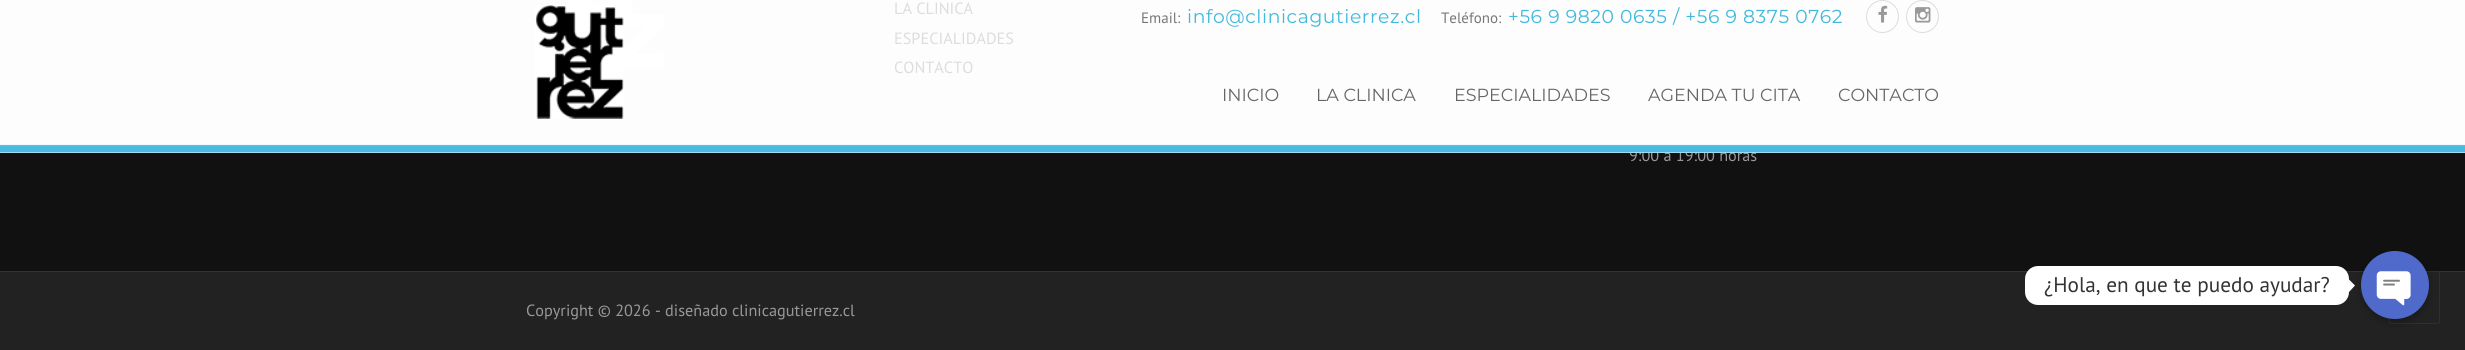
import math
import cairocffi as cairo

surface = cairo.ImageSurface(cairo.FORMAT_RGB24, 2465, 350)
cr = cairo.Context(surface)
options = cairo.FontOptions()
options.set_hint_metrics(cairo.HINT_METRICS_OFF)
options.set_hint_style(cairo.HINT_STYLE_NONE)
cr.set_font_options(options)
cr.set_miter_limit(4)


def use_color(code):
    cr.set_source_rgb(*(v / 255 for v in bytes.fromhex(code[-6:])))


def spaced_text(x, y, s, letter, word):
    cr.move_to(x, y)
    for ch in s:
        cr.show_text(ch)
        cr.rel_move_to(letter + word * (ch == ' '), 0)


def round_rect(x, y, w, h, r):
    cr.new_sub_path()
    for i, (u, v) in enumerate([(x + w - r, y + h - r), (x + r, y + h - r), (x + r, y + r), (x + w - r, y + r)]):
        cr.arc(u, v, r, i * math.pi / 2, (i + 1) * math.pi / 2)
    cr.close_path()


def shadow(x, y, w, h, r, blur, alpha):
    cr.push_group_with_content(cairo.CONTENT_ALPHA)
    cr.set_operator(cairo.OPERATOR_SOURCE)
    for i in range(15, -16, -2):
        e = blur * i / 6
        if min(w, h) + 2 * e > 0:
            cr.set_source_rgba(0, 0, 0, alpha * math.erfc((i - 1) / 8.5) / 2)
            round_rect(x - e, y - e, w + 2 * e, h + 2 * e, max(0, min(r + e + blur * .6, min(w, h) / 2 + e)))
            cr.fill()
    cr.mask(cr.pop_group())


def picture(path, x, y, w, h):
    cr.save()
    cr.set_source_surface(cairo.ImageSurface.create_from_png(path), x, y)
    cr.rectangle(x, y, w, h)
    cr.fill()
    cr.restore()


use_color("#111111")
cr.paint()
picture("img1.png", 565, 0, 99, 69)
cr.select_font_face("PT Sans")
cr.set_font_size(16.25)
use_color("#999999")
cr.move_to(1629, 161)
cr.show_text("9:00 a 19:00 horas")
cr.set_source_rgba(1, 1, 1, 0.99)
cr.rectangle(0, 0, 2465, 153)
cr.fill()
use_color("#dddddd")
cr.move_to(894, 14)
cr.show_text("LA CLINICA")
cr.move_to(894, 44)
cr.show_text("ESPECIALIDADES")
cr.move_to(894, 73)
cr.show_text("CONTACTO")
use_color("#222222")
cr.rectangle(0, 272, 2465, 78)
cr.fill()
use_color("#333333")
cr.rectangle(0, 271, 2465, 1)
cr.fill()
use_color("#999999")
cr.move_to(526, 316)
cr.show_text("Copyright © 2026 - diseñado clinicagutierrez.cl")
picture("img2.png", 0, 144, 2465, 9)
picture("img3.png", 535, 5, 89, 114)
cr.set_font_size(15)
use_color("#777777")
cr.move_to(1141, 23)
cr.show_text("Email:")
cr.select_font_face("Montserrat")
cr.set_font_size(18.75)
use_color("#3fb9dc")
spaced_text(1187, 23, "info@clinicagutierrez.cl", 0.6, 0)
cr.select_font_face("PT Sans")
cr.set_font_size(15)
use_color("#777777")
cr.move_to(1441, 23)
cr.show_text("Teléfono:")
cr.select_font_face("Montserrat")
cr.set_font_size(18.75)
use_color("#3fb9dc")
spaced_text(1508, 23, "+56 9 9820 0635 / +56 9 8375 0762", 0.6, 0)
cr.new_path()
cr.arc(1882.5, 16.5, 16, 0, 2 * math.pi)
use_color("#dddddd")
cr.set_line_width(1)
cr.stroke()
picture("img4.png", 1878, 5, 10, 18)
cr.arc(1922.5, 16.5, 16, 0, 2 * math.pi)
cr.stroke()
picture("img5.png", 1915, 7, 16, 16)
cr.set_font_size(17.5)
use_color("#666666")
cr.move_to(1222, 101)
cr.show_text("INICIO")
cr.move_to(1316, 101)
cr.show_text("LA CLINICA")
cr.move_to(1454, 101)
cr.show_text("ESPECIALIDADES")
cr.move_to(1648, 101)
cr.show_text("AGENDA TU CITA")
cr.move_to(1838, 101)
cr.show_text("CONTACTO")
cr.set_source_rgba(0.133, 0.133, 0.133, 0.8)
round_rect(2389, 271, 51, 53, 2.5)
cr.fill()
round_rect(2389.5, 271.5, 50, 52, 2)
cr.set_source_rgba(0.2, 0.2, 0.2, 0.8)
cr.stroke()
use_color("#ffffff")
round_rect(2025, 266, 324, 39, 13)
cr.fill()
cr.select_font_face("PT Sans")
cr.set_font_size(21.25)
use_color("#333333")
cr.move_to(2044, 292)
cr.show_text("¿Hola, en que te puedo ayudar?")
use_color("#ffffff")
cr.new_path()
cr.move_to(2349, 292)
cr.line_to(2349, 279.5)
cr.line_to(2355, 285.5)
cr.close_path()
cr.fill()
use_color("#000000")
shadow(2361, 255, 68, 68, 34, 4, 0.25)
picture("img6.png", 2361, 251, 68, 68)
surface.write_to_png("result.png")
